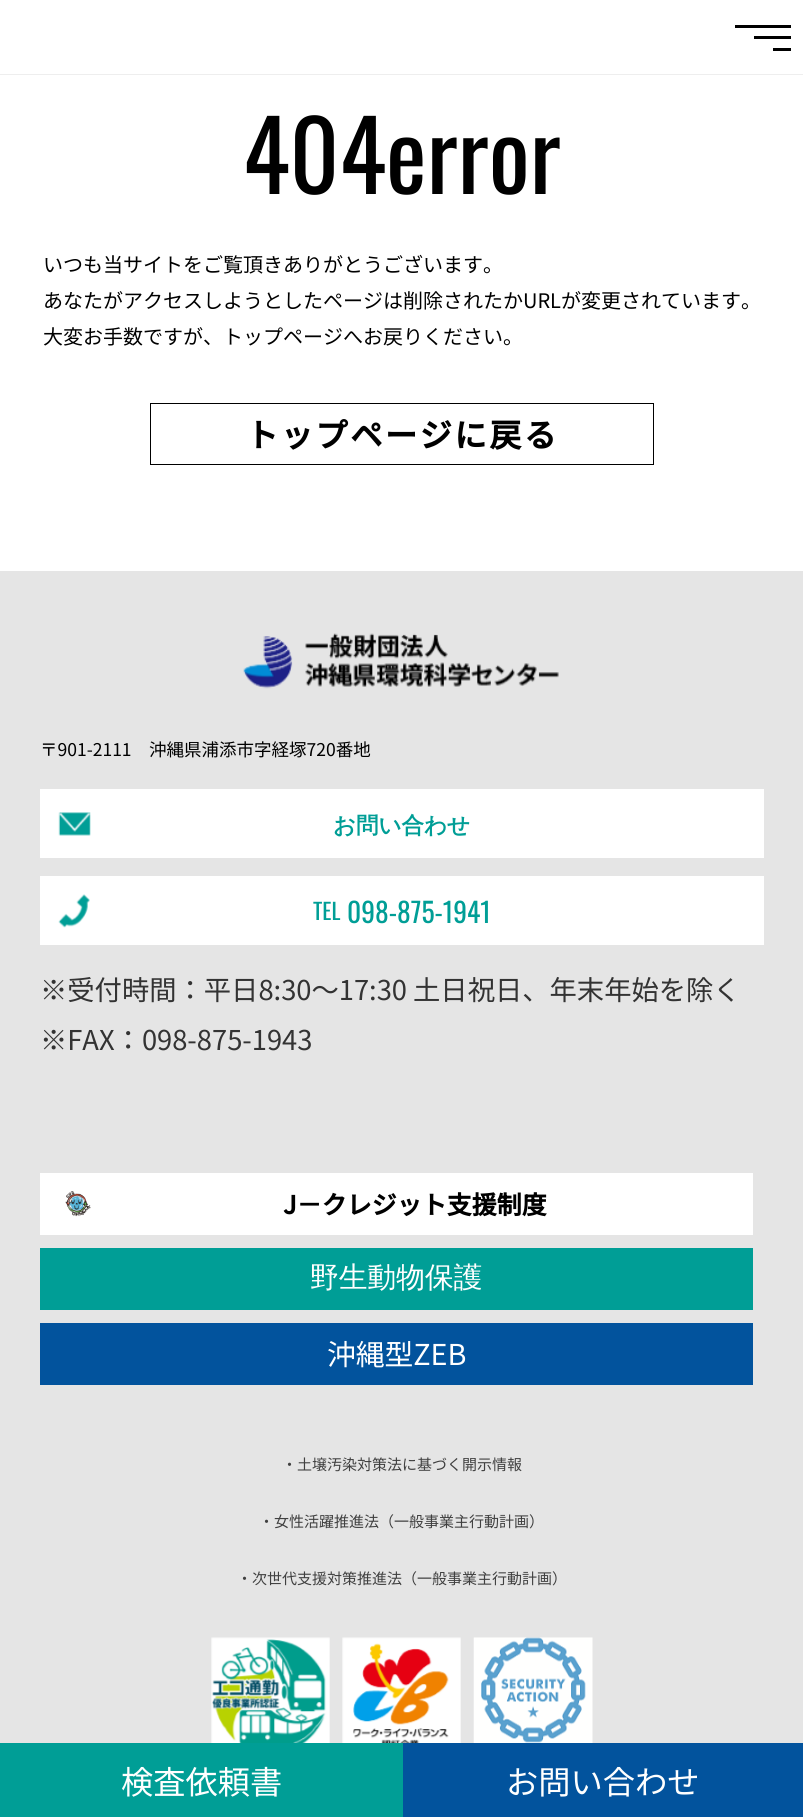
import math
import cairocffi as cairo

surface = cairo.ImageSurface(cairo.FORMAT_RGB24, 803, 1817)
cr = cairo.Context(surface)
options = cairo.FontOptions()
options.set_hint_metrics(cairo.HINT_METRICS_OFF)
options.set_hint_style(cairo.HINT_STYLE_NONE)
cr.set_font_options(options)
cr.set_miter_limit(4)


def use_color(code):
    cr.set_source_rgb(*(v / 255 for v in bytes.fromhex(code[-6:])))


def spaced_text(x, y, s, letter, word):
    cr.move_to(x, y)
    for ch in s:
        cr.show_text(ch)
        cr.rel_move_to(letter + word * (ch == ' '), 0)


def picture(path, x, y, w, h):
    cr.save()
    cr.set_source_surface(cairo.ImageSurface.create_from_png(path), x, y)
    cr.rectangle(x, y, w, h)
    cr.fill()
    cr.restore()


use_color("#ffffff")
cr.paint()
use_color("#eeeeee")
cr.rectangle(0, 74, 803, 1)
cr.fill()
use_color("#000000")
cr.rectangle(735, 25, 56, 3)
cr.fill()
cr.rectangle(754, 36, 37, 3)
cr.fill()
cr.rectangle(773, 48, 18, 3)
cr.fill()
cr.select_font_face("Oswald")
cr.set_font_size(96.5)
cr.move_to(243, 194)
cr.show_text("404error")
cr.select_font_face("Noto Sans JP")
cr.set_font_size(20)
cr.move_to(43, 272)
cr.show_text("いつも当サイトをご覧頂きありがとうございます。")
cr.move_to(43, 308)
cr.show_text("あなたがアクセスしようとしたページは削除されたかURLが変更されています。")
cr.move_to(43, 344)
cr.show_text("大変お手数ですが、トップページへお戻りください。")
cr.rectangle(150.5, 403.5, 503, 61)
cr.set_line_width(1)
cr.stroke()
cr.select_font_face("Noto Sans JP", cairo.FONT_SLANT_NORMAL, cairo.FONT_WEIGHT_BOLD)
cr.set_font_size(32.25)
spaced_text(246, 447, "トップページに戻る", 2.5, 0)
use_color("#e5e5e5")
cr.rectangle(0, 571, 803, 1172)
cr.fill()
picture("img1.png", 243, 633, 316, 56)
cr.select_font_face("Noto Sans JP")
cr.set_font_size(17.5)
use_color("#000000")
cr.move_to(40, 756)
cr.show_text("〒901-2111　沖縄県浦添市字経塚720番地")
use_color("#ffffff")
cr.rectangle(40, 789, 724, 69)
cr.fill()
picture("img2.png", 58, 812, 33, 24)
cr.select_font_face("WenQuanYi Zen Hei", cairo.FONT_SLANT_NORMAL, cairo.FONT_WEIGHT_BOLD)
cr.set_font_size(22.5)
use_color("#009e96")
cr.move_to(333, 833)
cr.show_text("お問い合わせ")
use_color("#ffffff")
cr.rectangle(40, 876, 724, 69)
cr.fill()
picture("img3.png", 58, 894, 32, 34)
cr.select_font_face("Oswald")
use_color("#009e96")
cr.move_to(313, 920)
cr.show_text("TEL")
cr.set_font_size(27.5)
cr.move_to(347, 923)
cr.show_text("098-875-1941")
cr.select_font_face("Noto Sans JP")
cr.set_font_size(27.3)
use_color("#333333")
cr.move_to(40, 1000)
cr.show_text("※受付時間：平日8:30～17:30 土日祝日、年末年始を除く")
cr.move_to(40, 1050)
cr.show_text("※FAX：098-875-1943")
use_color("#ffffff")
cr.rectangle(40, 1173, 713, 62)
cr.fill()
picture("img4.png", 65, 1191, 26, 26)
cr.select_font_face("Noto Sans JP", cairo.FONT_SLANT_NORMAL, cairo.FONT_WEIGHT_BOLD)
cr.set_font_size(25)
use_color("#000000")
cr.move_to(283, 1214)
cr.show_text("J－クレジット支援制度")
use_color("#009e96")
cr.rectangle(40, 1248, 713, 62)
cr.fill()
cr.select_font_face("WenQuanYi Zen Hei Medium")
cr.set_font_size(28.75)
use_color("#ffffff")
cr.move_to(310, 1287)
cr.show_text("野生動物保護")
use_color("#02539d")
cr.rectangle(40, 1323, 713, 62)
cr.fill()
cr.select_font_face("Noto Sans JP")
use_color("#ffffff")
cr.move_to(327, 1365)
cr.show_text("沖縄型ZEB")
cr.set_font_size(15)
use_color("#404040")
cr.move_to(282, 1470)
cr.show_text("・土壌汚染対策法に基づく開示情報")
cr.move_to(259, 1527)
cr.show_text("・女性活躍推進法（一般事業主行動計画）")
cr.move_to(237, 1584)
cr.show_text("・次世代支援対策推進法（一般事業主行動計画）")
picture("img5.png", 211, 1637, 119, 106)
picture("img6.png", 342, 1637, 119, 106)
picture("img7.png", 473, 1637, 120, 106)
use_color("#009e96")
cr.rectangle(0, 1743, 403, 74)
cr.fill()
cr.set_font_size(32.25)
use_color("#ffffff")
cr.move_to(121, 1794)
cr.show_text("検査依頼書")
use_color("#02539d")
cr.rectangle(403, 1743, 400, 74)
cr.fill()
use_color("#ffffff")
cr.move_to(506, 1794)
cr.show_text("お問い合わせ")
surface.write_to_png("result.png")
